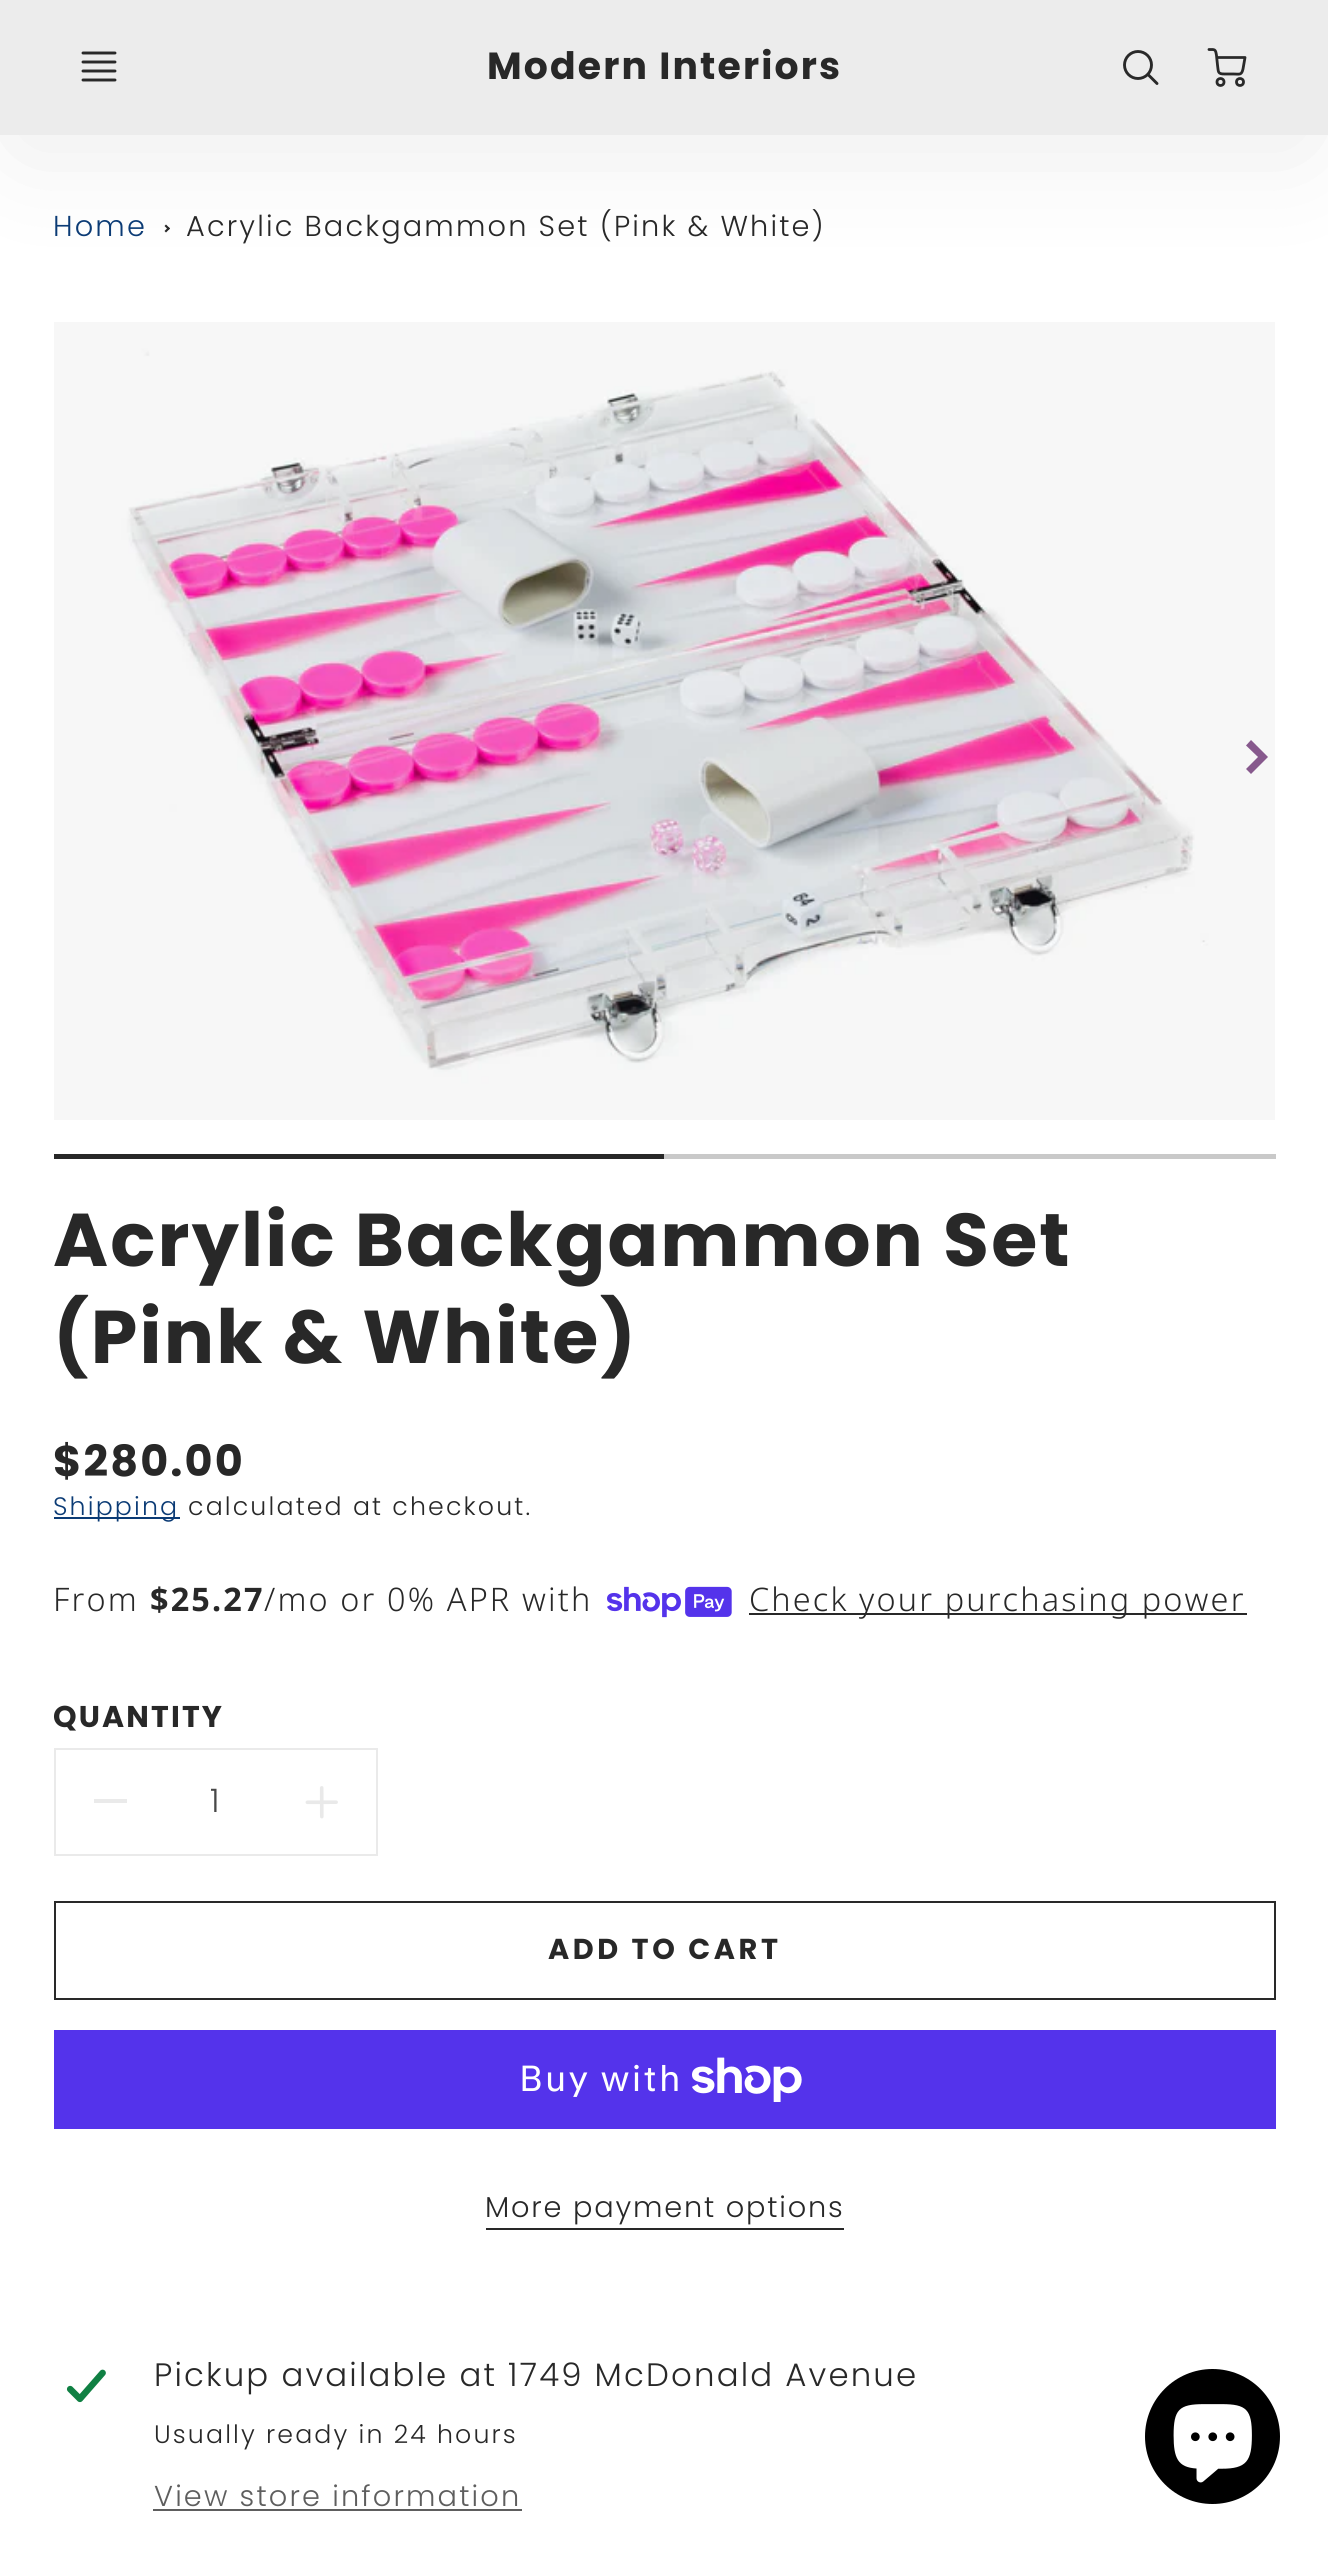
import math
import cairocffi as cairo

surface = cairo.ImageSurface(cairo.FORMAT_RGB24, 1328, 2550)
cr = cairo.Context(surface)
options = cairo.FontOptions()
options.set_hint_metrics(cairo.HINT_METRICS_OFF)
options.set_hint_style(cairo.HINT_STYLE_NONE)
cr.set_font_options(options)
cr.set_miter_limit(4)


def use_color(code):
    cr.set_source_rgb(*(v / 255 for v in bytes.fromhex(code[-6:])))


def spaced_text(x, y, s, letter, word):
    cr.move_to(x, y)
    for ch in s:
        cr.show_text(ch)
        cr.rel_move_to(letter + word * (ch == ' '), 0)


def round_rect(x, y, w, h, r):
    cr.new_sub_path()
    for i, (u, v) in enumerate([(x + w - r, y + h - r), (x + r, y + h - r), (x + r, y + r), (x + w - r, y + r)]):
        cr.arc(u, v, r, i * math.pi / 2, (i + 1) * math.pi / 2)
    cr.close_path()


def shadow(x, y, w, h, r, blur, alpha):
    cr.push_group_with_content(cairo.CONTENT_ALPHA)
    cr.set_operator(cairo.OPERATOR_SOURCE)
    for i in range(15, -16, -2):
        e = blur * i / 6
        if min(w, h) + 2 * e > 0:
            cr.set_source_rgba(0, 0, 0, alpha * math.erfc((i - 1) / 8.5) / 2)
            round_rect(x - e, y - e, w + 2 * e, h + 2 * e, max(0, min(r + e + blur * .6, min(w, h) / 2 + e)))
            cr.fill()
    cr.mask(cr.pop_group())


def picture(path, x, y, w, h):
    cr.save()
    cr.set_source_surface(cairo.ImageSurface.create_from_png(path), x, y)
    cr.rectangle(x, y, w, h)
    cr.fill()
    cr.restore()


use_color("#ffffff")
cr.paint()
use_color("#282828")
cr.new_path()
cr.move_to(166, 224.5)
cr.line_to(170, 228.5)
cr.line_to(168.5, 230)
cr.line_to(164.5, 226)
cr.close_path()
cr.fill()
cr.new_path()
cr.move_to(168.5, 227)
cr.line_to(170, 228.5)
cr.line_to(166, 232.5)
cr.line_to(164.5, 231)
cr.close_path()
cr.fill()
use_color("#292929")
shadow(20, 54, 1285, 90, 0, 56, 0.1)
use_color("#ececec")
cr.rectangle(0, 0, 1328, 135)
cr.fill()
cr.new_path()
cr.move_to(115, 71)
cr.line_to(83, 71)
cr.move_to(115, 80)
cr.line_to(83, 80)
cr.move_to(115, 53)
cr.line_to(83, 53)
cr.move_to(115, 62)
cr.line_to(83, 62)
use_color("#292929")
cr.set_line_width(2.9)
cr.set_line_cap(cairo.LINE_CAP_ROUND)
cr.set_line_join(cairo.LINE_JOIN_ROUND)
cr.stroke()
cr.select_font_face("Poppins", cairo.FONT_SLANT_NORMAL, cairo.FONT_WEIGHT_BOLD)
cr.set_font_size(37.75)
use_color("#282828")
spaced_text(487, 79, "Modern Interiors", 2.15, 0)
cr.new_path()
cr.arc(1138, 65, 13.5, 0, 2 * math.pi)
use_color("#292929")
cr.set_line_cap(cairo.LINE_CAP_BUTT)
cr.set_line_join(cairo.LINE_JOIN_MITER)
cr.stroke()
cr.new_path()
cr.move_to(1157, 83.5)
cr.line_to(1148, 74.5)
cr.set_line_cap(cairo.LINE_CAP_ROUND)
cr.set_line_join(cairo.LINE_JOIN_ROUND)
cr.stroke()
cr.new_path()
cr.move_to(1217, 57.5)
cr.line_to(1245, 57.5)
cr.line_to(1243, 69)
cr.curve_to(1241.5, 75.5, 1239.5, 74, 1233.5, 74)
cr.line_to(1224.5, 74)
cr.curve_to(1217.5, 74, 1218.5, 72, 1217.5, 65)
cr.line_to(1216.5, 55.5)
cr.curve_to(1215.5, 49, 1215, 49.5, 1209, 49.5)
cr.set_line_width(2.8)
cr.stroke()
cr.arc(1220.5, 82, 3.5, 0, 2 * math.pi)
cr.set_line_cap(cairo.LINE_CAP_BUTT)
cr.set_line_join(cairo.LINE_JOIN_MITER)
cr.stroke()
cr.arc(1240, 82, 3.5, 0, 2 * math.pi)
cr.stroke()
cr.select_font_face("Poppins Light")
cr.set_font_size(28.8)
use_color("#0b3b75")
spaced_text(53, 236, "Home", 2.15, 0)
use_color("#282828")
spaced_text(186, 236, "Acrylic Backgammon Set (Pink & White)", 2.15, 0)
picture("img1.png", 54, 322, 1221, 798)
use_color("#87598d")
cr.new_path()
cr.move_to(1268, 757)
cr.line_to(1251, 740)
cr.line_to(1246, 745.5)
cr.line_to(1258, 757)
cr.line_to(1246, 769)
cr.line_to(1251, 774)
cr.close_path()
cr.fill()
use_color("#282828")
cr.rectangle(54, 1154, 610, 5)
cr.fill()
use_color("#c9c9c9")
cr.rectangle(664, 1154, 612, 5)
cr.fill()
cr.select_font_face("Poppins", cairo.FONT_SLANT_NORMAL, cairo.FONT_WEIGHT_BOLD)
cr.set_font_size(74.7)
use_color("#282828")
spaced_text(53, 1266, "Acrylic Backgammon Set", 2.15, 0)
spaced_text(53, 1363, "(Pink & White)", 2.15, 0)
cr.set_font_size(43)
spaced_text(53, 1476, "$280.00", 2.15, 0)
use_color("#0b3b75")
cr.rectangle(54, 1517, 126, 2)
cr.fill()
cr.select_font_face("Poppins Light")
cr.set_font_size(25.25)
spaced_text(53, 1515, "Shipping", 2.15, 0)
use_color("#282828")
spaced_text(188, 1515, "calculated at checkout.", 2.15, 0)
cr.select_font_face("Noto Sans Light")
cr.set_font_size(32.4)
spaced_text(53, 1611, "From", 2.15, 0)
cr.select_font_face("Noto Sans", cairo.FONT_SLANT_NORMAL, cairo.FONT_WEIGHT_BOLD)
spaced_text(150, 1611, "$25.27", 2.15, 0)
cr.select_font_face("Noto Sans Light")
spaced_text(264, 1611, "/mo or 0% APR with", 2.15, 0)
picture("img2.png", 607, 1586, 125, 32)
cr.rectangle(749, 1613, 498, 2)
cr.fill()
spaced_text(749, 1611, "Check your purchasing power", 2.15, 0)
cr.select_font_face("Poppins", cairo.FONT_SLANT_NORMAL, cairo.FONT_WEIGHT_BOLD)
cr.set_font_size(30)
spaced_text(53, 1727, "QUANTITY", 2.15, 0)
cr.rectangle(55, 1749, 322, 106)
use_color("#eaeaea")
cr.set_line_width(2)
cr.stroke()
cr.rectangle(94, 1799, 33, 4)
cr.fill()
cr.select_font_face("Poppins Light")
cr.set_font_size(32.4)
use_color("#484848")
cr.move_to(210, 1812)
cr.show_text("1")
picture("img3.png", 305, 1786, 33, 33)
cr.rectangle(55, 1902, 1220, 97)
use_color("#292929")
cr.stroke()
cr.select_font_face("Poppins", cairo.FONT_SLANT_NORMAL, cairo.FONT_WEIGHT_BOLD)
cr.set_font_size(28.8)
use_color("#282828")
spaced_text(548, 1959, "ADD TO CART", 3.6, 0)
use_color("#5433eb")
cr.rectangle(54, 2030, 1222, 99)
cr.fill()
cr.select_font_face("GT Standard")
cr.set_font_size(36)
use_color("#ffffff")
spaced_text(519, 2091, "Buy with", 2.15, 0)
picture("img4.png", 692, 2057, 110, 45)
cr.select_font_face("Poppins Light")
cr.set_font_size(28.8)
use_color("#282828")
spaced_text(485, 2217, "More payment options", 1.8, 0)
cr.rectangle(486, 2228, 358, 2)
cr.fill()
picture("img5.png", 66, 2369, 40, 34)
cr.set_font_size(32.4)
spaced_text(154, 2386, "Pickup available at 1749 McDonald Avenue", 2.15, 0)
cr.set_font_size(25.25)
spaced_text(154, 2443, "Usually ready in 24 hours", 2.15, 0)
cr.set_font_size(28.8)
use_color("#5e5e5e")
spaced_text(154, 2506, "View store information", 2.15, 0)
cr.rectangle(153, 2509, 369, 2)
cr.fill()
use_color("#000000")
cr.arc(1212.5, 2436.5, 67.5, 0, 2 * math.pi)
cr.fill()
picture("img6.png", 1173, 2404, 79, 79)
surface.write_to_png("result.png")
